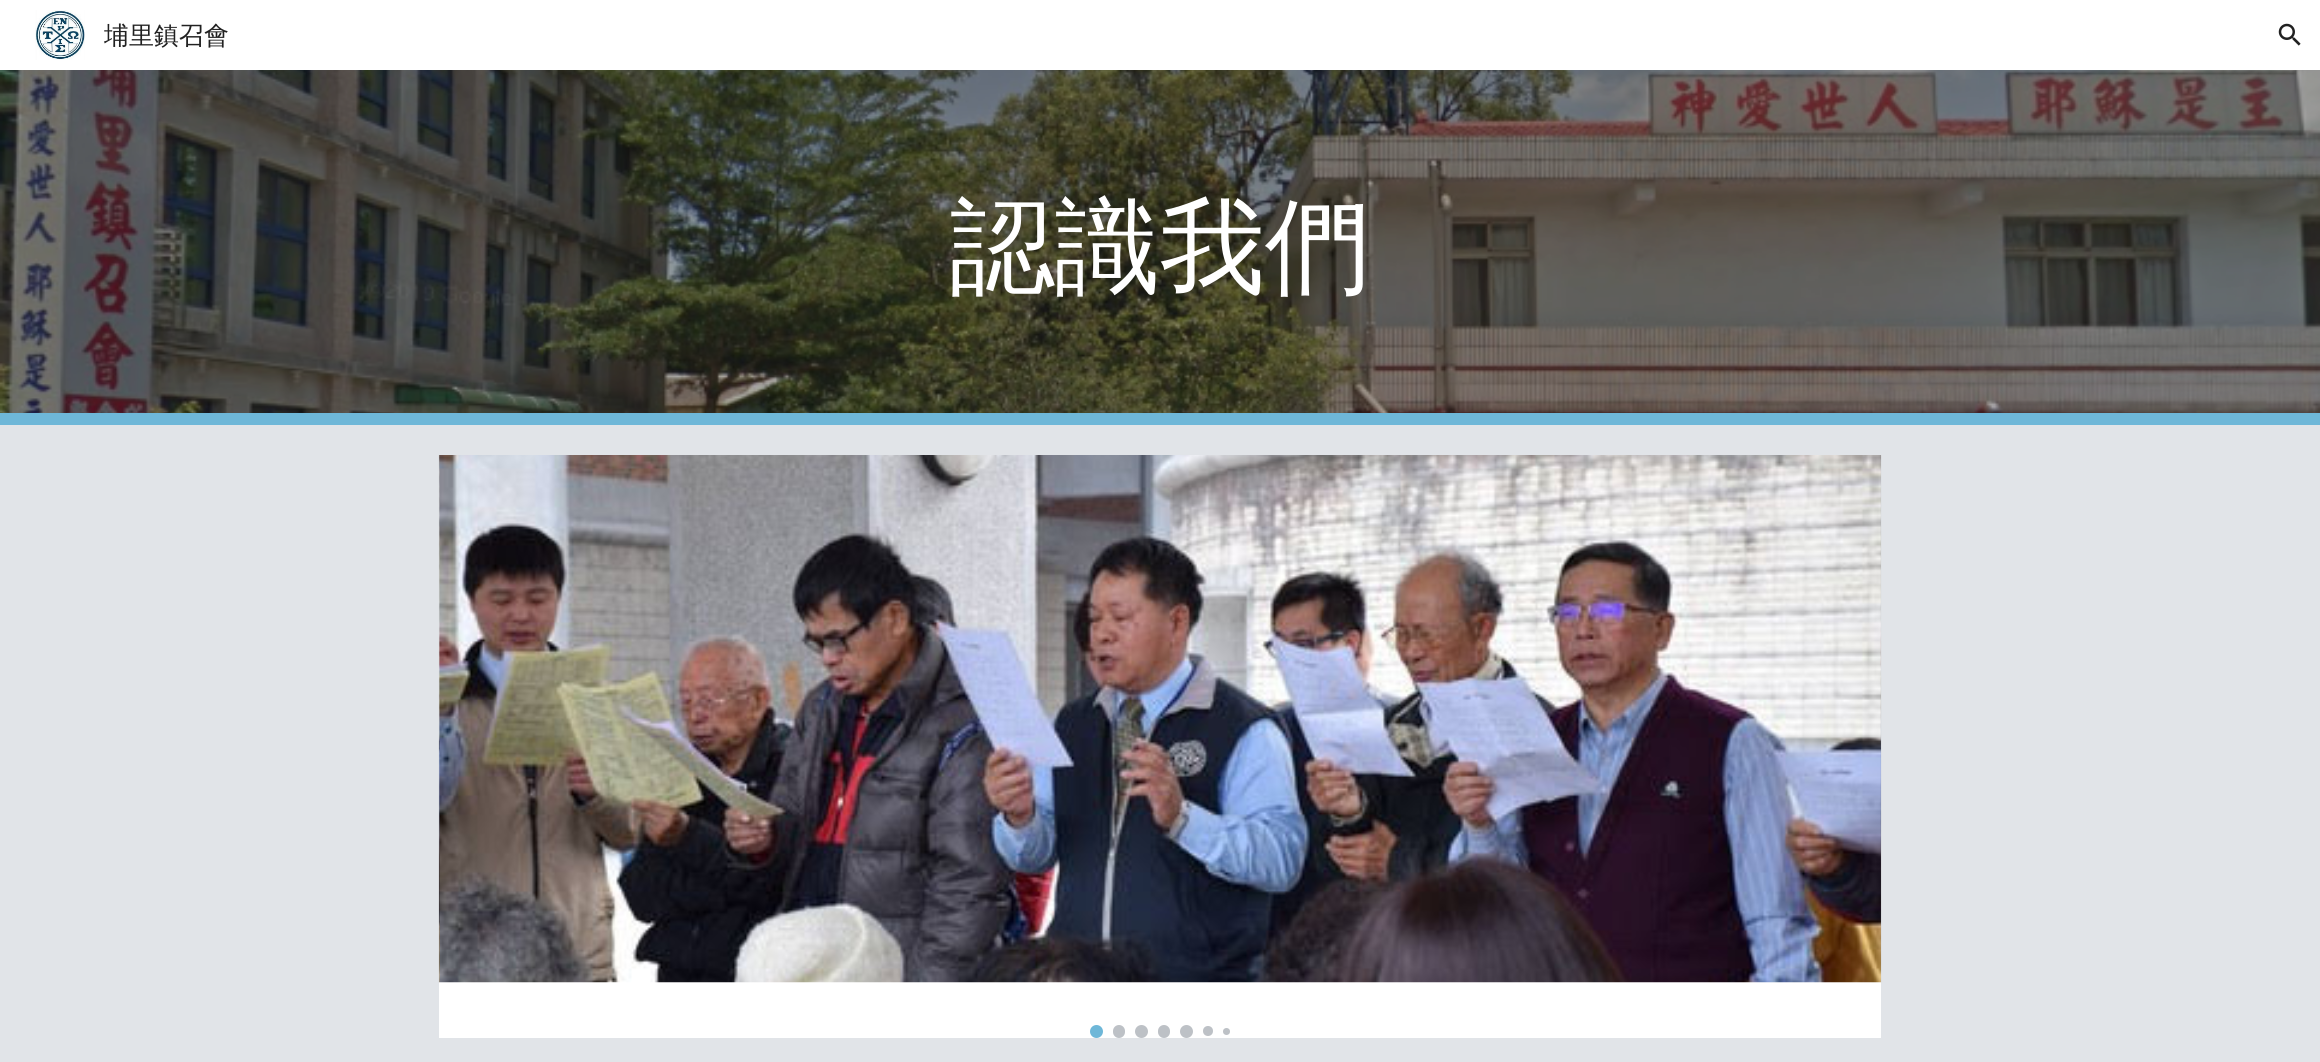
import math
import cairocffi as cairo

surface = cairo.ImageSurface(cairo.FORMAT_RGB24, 2320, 1062)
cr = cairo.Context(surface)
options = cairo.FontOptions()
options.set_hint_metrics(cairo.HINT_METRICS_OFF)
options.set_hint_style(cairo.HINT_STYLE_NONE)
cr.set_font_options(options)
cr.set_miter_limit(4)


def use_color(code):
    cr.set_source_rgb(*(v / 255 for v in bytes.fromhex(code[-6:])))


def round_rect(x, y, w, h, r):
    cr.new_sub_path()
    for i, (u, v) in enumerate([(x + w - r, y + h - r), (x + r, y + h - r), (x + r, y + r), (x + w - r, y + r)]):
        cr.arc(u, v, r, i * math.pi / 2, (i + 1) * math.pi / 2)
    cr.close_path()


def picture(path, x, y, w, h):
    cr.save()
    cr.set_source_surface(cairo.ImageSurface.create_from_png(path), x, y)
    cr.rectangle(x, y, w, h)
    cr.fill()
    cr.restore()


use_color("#e1e4e8")
cr.paint()
use_color("#ffffff")
cr.rectangle(0, 0, 2320, 70)
cr.fill()
picture("img1.png", 35, 10, 50, 50)
cr.select_font_face("WenQuanYi Zen Hei Medium")
cr.set_font_size(25)
use_color("#212121")
cr.move_to(104, 44)
cr.show_text("埔里鎮召會")
picture("img2.png", 2278, 23, 23, 23)
picture("img3.png", 0, 70, 2320, 343)
use_color("#6eb7d8")
cr.rectangle(0, 413, 2320, 12)
cr.fill()
cr.set_font_size(105)
use_color("#ffffff")
cr.move_to(950, 283)
cr.show_text("認識我們")
cr.rectangle(439, 982, 1442, 56)
cr.fill()
picture("img4.png", 438, 455, 1444, 528)
use_color("#6eb7d8")
cr.arc(1096.5, 1031.5, 6.5, 0, 2 * math.pi)
cr.fill()
use_color("#bdc1c6")
round_rect(1113, 1025, 12, 13, 6)
cr.fill()
cr.arc(1141.5, 1031.5, 6.5, 0, 2 * math.pi)
cr.fill()
round_rect(1158, 1025, 12, 13, 6)
cr.fill()
cr.arc(1186.5, 1031.5, 6.5, 0, 2 * math.pi)
cr.fill()
cr.arc(1208, 1031, 5, 0, 2 * math.pi)
cr.fill()
cr.arc(1226.5, 1031.5, 3.5, 0, 2 * math.pi)
cr.fill()
surface.write_to_png("result.png")
